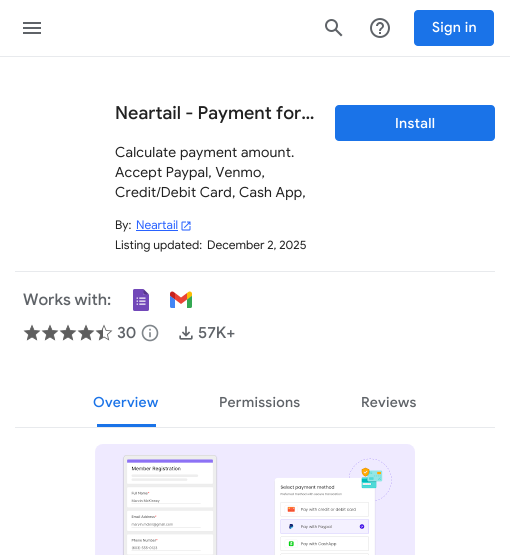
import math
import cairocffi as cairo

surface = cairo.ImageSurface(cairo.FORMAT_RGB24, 510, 555)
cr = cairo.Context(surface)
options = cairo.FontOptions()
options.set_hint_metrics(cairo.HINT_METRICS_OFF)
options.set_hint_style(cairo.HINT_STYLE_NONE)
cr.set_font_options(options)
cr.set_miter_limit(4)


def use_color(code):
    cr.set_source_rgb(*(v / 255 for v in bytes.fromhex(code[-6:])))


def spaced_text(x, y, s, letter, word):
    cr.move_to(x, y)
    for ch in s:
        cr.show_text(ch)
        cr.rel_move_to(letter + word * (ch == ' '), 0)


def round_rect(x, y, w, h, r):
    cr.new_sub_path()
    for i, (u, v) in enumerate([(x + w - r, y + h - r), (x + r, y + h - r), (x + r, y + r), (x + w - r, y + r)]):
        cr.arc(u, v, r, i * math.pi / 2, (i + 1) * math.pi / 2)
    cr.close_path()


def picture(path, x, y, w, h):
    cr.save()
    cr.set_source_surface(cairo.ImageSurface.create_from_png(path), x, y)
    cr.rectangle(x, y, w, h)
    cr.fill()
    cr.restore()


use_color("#ffffff")
cr.paint()
use_color("#e8eaed")
cr.rectangle(0, 56, 510, 1)
cr.fill()
picture("img1.png", 23, 22, 18, 12)
picture("img2.png", 325, 19, 18, 18)
picture("img3.png", 370, 18, 20, 20)
use_color("#1a73e8")
round_rect(414, 10, 80, 36, 4)
cr.fill()
cr.select_font_face("Google Sans Medium")
cr.set_font_size(14)
use_color("#ffffff")
spaced_text(432, 32, "Sign in", 0.25, 0)
cr.set_font_size(18)
use_color("#212121")
cr.move_to(115, 119)
cr.show_text("Neartail - Payment for…")
cr.select_font_face("Google Sans")
cr.set_font_size(14)
spaced_text(115, 157, "Calculate payment amount.", 0.2, 0)
spaced_text(115, 177, "Accept Paypal, Venmo,", 0.2, 0)
spaced_text(115, 197, "Credit/Debit Card, Cash App,", 0.2, 0)
cr.set_font_size(12)
cr.move_to(115, 229)
cr.show_text("By:")
use_color("#2962ff")
cr.move_to(136, 229)
cr.show_text("Neartail")
cr.rectangle(136, 230, 42, 1)
cr.fill()
picture("img4.png", 181, 221, 10, 10)
use_color("#212121")
cr.move_to(115, 249)
cr.show_text("Listing updated:")
cr.move_to(207, 249)
cr.show_text("December 2, 2025")
use_color("#1a73e8")
round_rect(335, 105, 160, 36, 4)
cr.fill()
cr.select_font_face("Google Sans Medium")
cr.set_font_size(14)
use_color("#ffffff")
spaced_text(395, 128, "Install", 0.25, 0)
use_color("#e8eaed")
cr.rectangle(15, 271, 480, 1)
cr.fill()
cr.set_font_size(16)
use_color("#5f6368")
cr.move_to(23, 305)
cr.show_text("Works with:")
picture("img5.png", 133, 289, 16, 22)
picture("img6.png", 170, 291, 22, 17)
picture("img7.png", 23, 324, 18, 17)
picture("img7.png", 41, 324, 18, 17)
picture("img7.png", 59, 324, 18, 17)
picture("img7.png", 77, 324, 18, 17)
picture("img8.png", 95, 324, 18, 17)
cr.move_to(117, 338)
cr.show_text("30")
picture("img9.png", 141, 324, 18, 18)
picture("img10.png", 179, 326, 14, 14)
cr.move_to(198, 338)
cr.show_text("57K+")
cr.set_font_size(14)
use_color("#1a73e8")
spaced_text(93, 407, "Overview", 0.25, 0)
cr.rectangle(97, 424, 59, 3)
cr.fill()
use_color("#5f6368")
spaced_text(219, 407, "Permissions", 0.25, 0)
spaced_text(361, 407, "Reviews", 0.25, 0)
use_color("#e8eaed")
cr.rectangle(15, 427, 480, 1)
cr.fill()
picture("img11.png", 95, 444, 320, 111)
surface.write_to_png("result.png")
